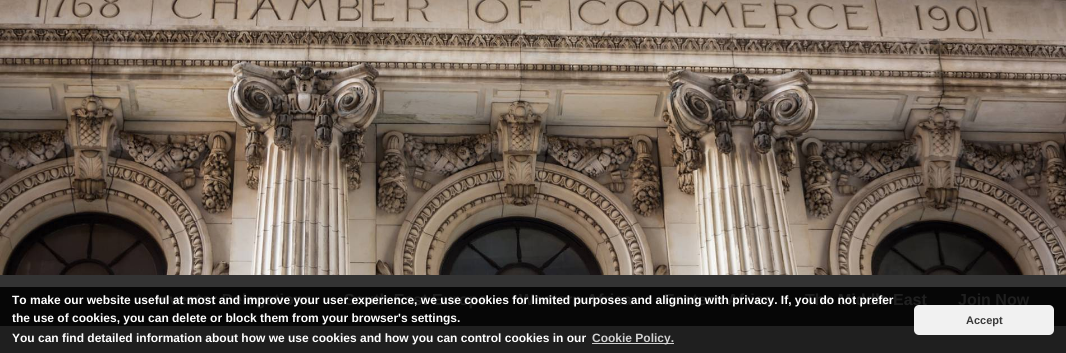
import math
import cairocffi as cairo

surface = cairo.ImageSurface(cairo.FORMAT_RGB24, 1066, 353)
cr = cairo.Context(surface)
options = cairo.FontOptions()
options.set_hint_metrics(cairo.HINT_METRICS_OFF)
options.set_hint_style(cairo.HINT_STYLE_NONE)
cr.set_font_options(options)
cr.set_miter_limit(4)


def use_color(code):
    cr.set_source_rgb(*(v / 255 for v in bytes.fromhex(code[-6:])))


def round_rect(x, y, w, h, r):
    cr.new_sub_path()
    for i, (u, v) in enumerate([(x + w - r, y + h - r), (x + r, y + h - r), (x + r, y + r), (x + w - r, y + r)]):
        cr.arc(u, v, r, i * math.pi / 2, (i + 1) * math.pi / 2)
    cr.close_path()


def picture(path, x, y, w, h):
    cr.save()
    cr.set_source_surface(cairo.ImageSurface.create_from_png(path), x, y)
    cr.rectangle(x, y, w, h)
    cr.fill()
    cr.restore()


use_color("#1f1f1f")
cr.paint()
picture("img1.png", 0, 0, 1066, 275)
use_color("#333333")
cr.rectangle(0, 275, 1066, 12)
cr.fill()
use_color("#060606")
cr.rectangle(0, 287, 1066, 39)
cr.fill()
cr.select_font_face("Liberation Sans", cairo.FONT_SLANT_NORMAL, cairo.FONT_WEIGHT_BOLD)
cr.set_font_size(16)
use_color("#1f1f1f")
cr.move_to(155, 305)
cr.show_text("Investor Delegations")
cr.move_to(344, 305)
cr.show_text("South East Europe")
cr.move_to(519, 305)
cr.show_text("Western Africa")
cr.move_to(664, 305)
cr.show_text("Eastern Africa")
cr.move_to(805, 305)
cr.show_text("The Middle East")
cr.move_to(958, 305)
cr.show_text("Join Now")
cr.set_font_size(12)
use_color("#ffffff")
cr.move_to(12, 304)
cr.show_text("To make our website useful at most and improve your user experience, we use cookies for limited purposes and aligning with privacy. If, you do not prefer")
cr.move_to(12, 322)
cr.show_text("the use of cookies, you can delete or block them from your browser's settings.")
cr.move_to(12, 342)
cr.show_text("You can find detailed information about how we use cookies and how you can control cookies in our")
use_color("#d2d2d2")
cr.rectangle(592, 343, 82, 1)
cr.fill()
cr.move_to(592, 342)
cr.show_text("Cookie Policy.")
use_color("#f1f1f1")
round_rect(914, 305, 140, 30, 5)
cr.fill()
cr.set_font_size(11)
use_color("#3a3a3a")
cr.move_to(966, 324)
cr.show_text("Accept")
surface.write_to_png("result.png")
